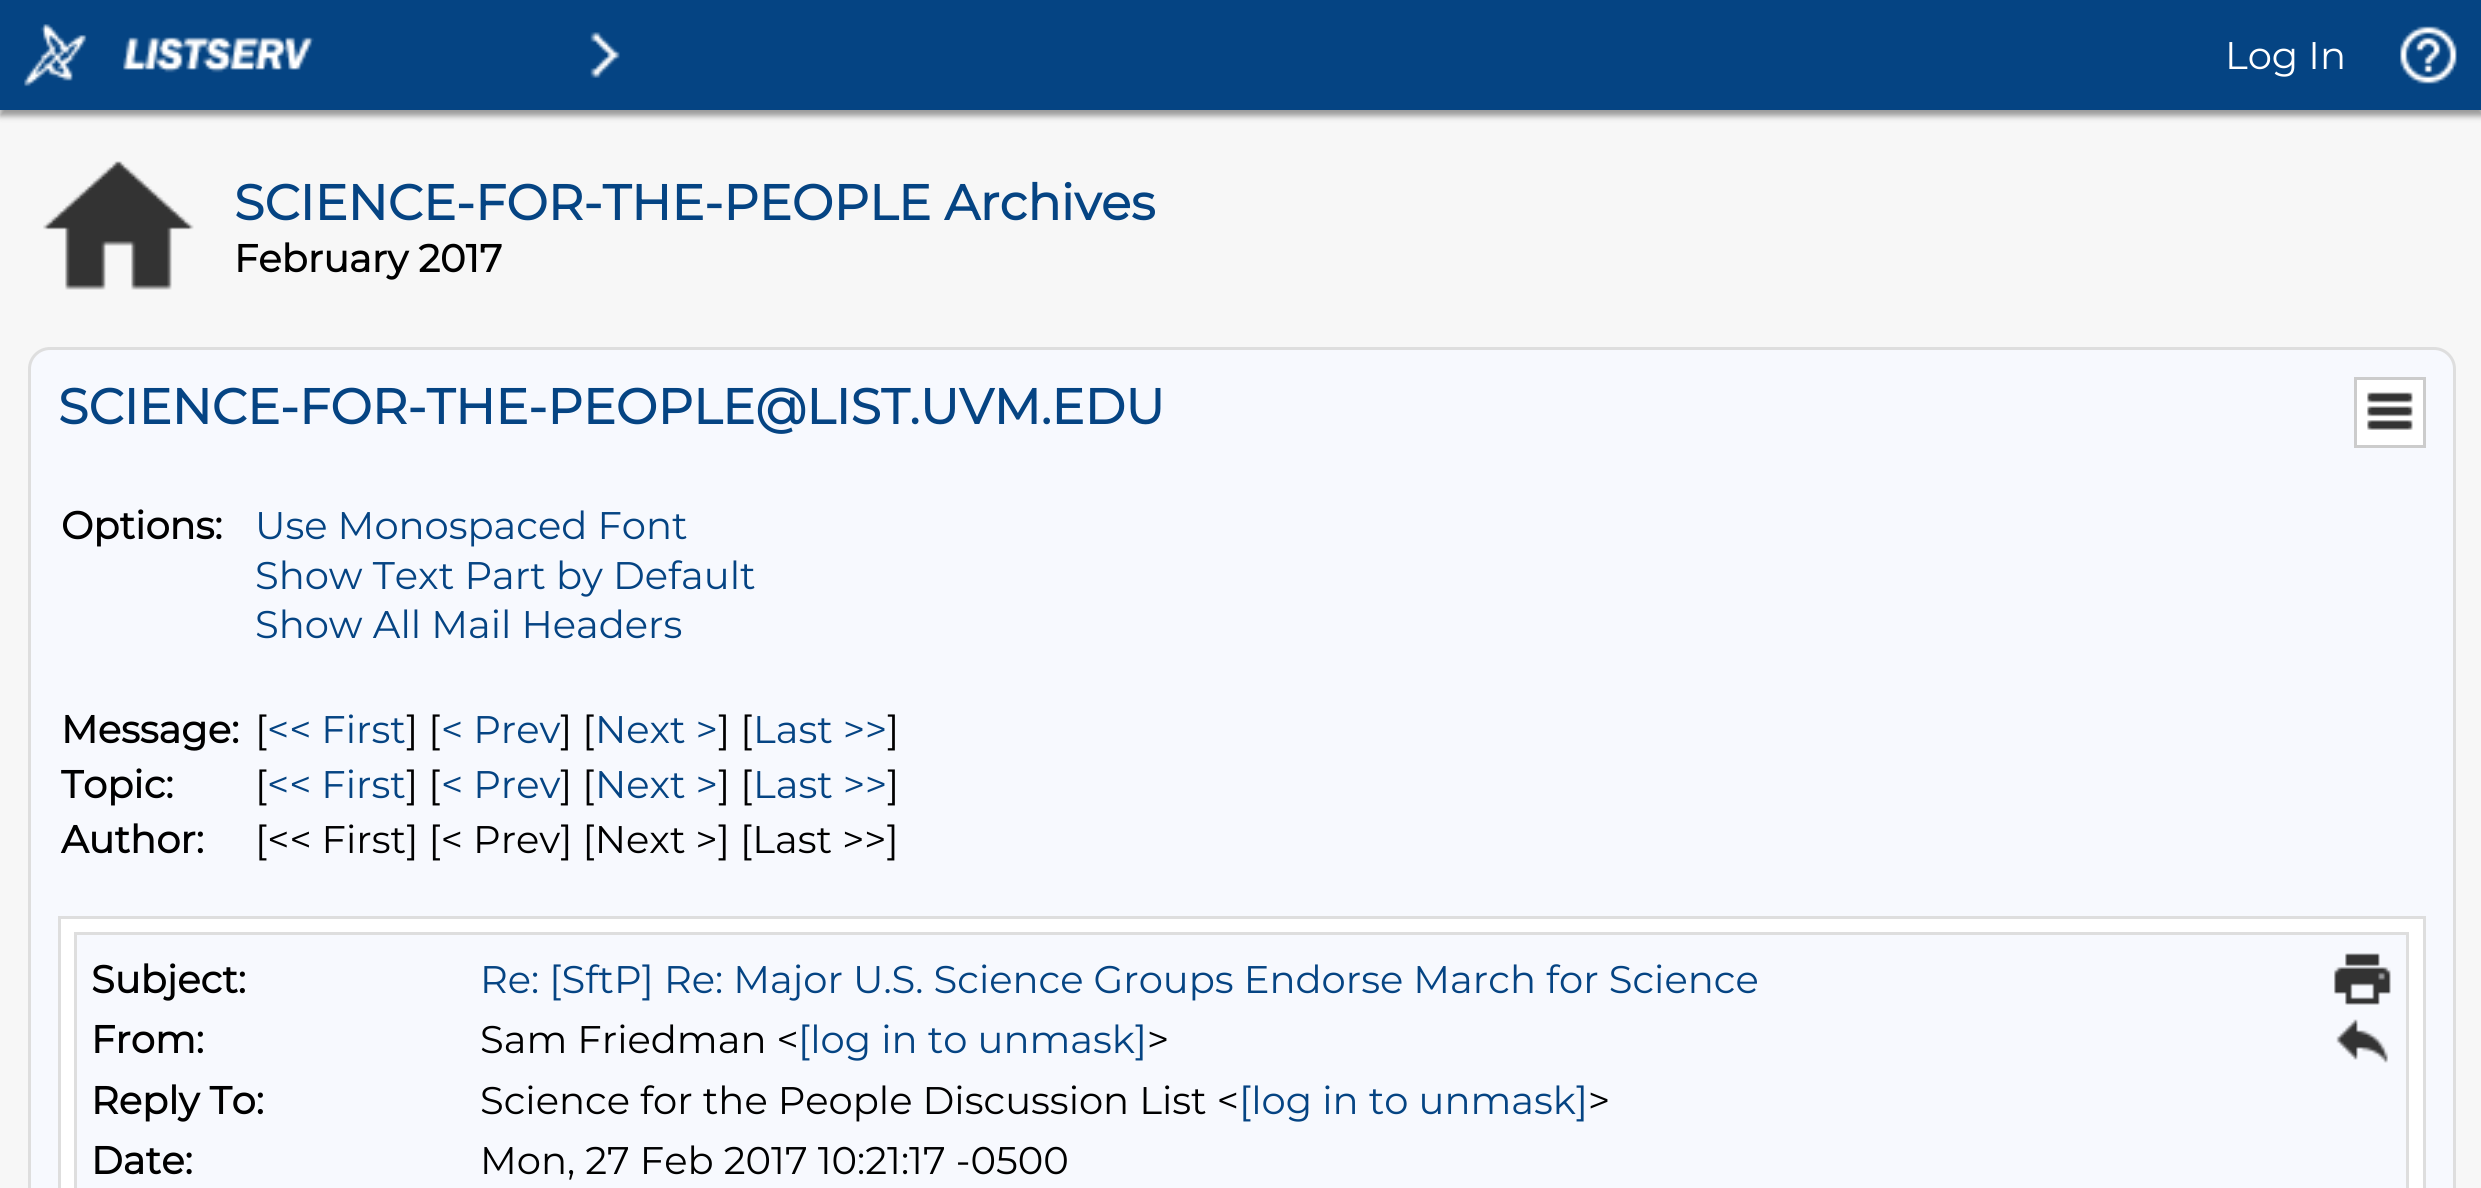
import math
import cairocffi as cairo

surface = cairo.ImageSurface(cairo.FORMAT_RGB24, 2481, 1188)
cr = cairo.Context(surface)
options = cairo.FontOptions()
options.set_hint_metrics(cairo.HINT_METRICS_OFF)
options.set_hint_style(cairo.HINT_STYLE_NONE)
cr.set_font_options(options)
cr.set_miter_limit(4)


def use_color(code):
    cr.set_source_rgb(*(v / 255 for v in bytes.fromhex(code[-6:])))


def round_rect(x, y, w, h, r):
    cr.new_sub_path()
    for i, (u, v) in enumerate([(x + w - r, y + h - r), (x + r, y + h - r), (x + r, y + r), (x + w - r, y + r)]):
        cr.arc(u, v, r, i * math.pi / 2, (i + 1) * math.pi / 2)
    cr.close_path()


def shadow(x, y, w, h, r, blur, alpha):
    cr.push_group_with_content(cairo.CONTENT_ALPHA)
    cr.set_operator(cairo.OPERATOR_SOURCE)
    for i in range(15, -16, -2):
        e = blur * i / 6
        if min(w, h) + 2 * e > 0:
            cr.set_source_rgba(0, 0, 0, alpha * math.erfc((i - 1) / 8.5) / 2)
            round_rect(x - e, y - e, w + 2 * e, h + 2 * e, max(0, min(r + e + blur * .6, min(w, h) / 2 + e)))
            cr.fill()
    cr.mask(cr.pop_group())


def picture(path, x, y, w, h):
    cr.save()
    cr.set_source_surface(cairo.ImageSurface.create_from_png(path), x, y)
    cr.rectangle(x, y, w, h)
    cr.fill()
    cr.restore()


use_color("#f7f7f7")
cr.paint()
use_color("#999999")
shadow(0, 6, 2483, 110, 0, 3, 1)
use_color("#054483")
cr.rectangle(0, 0, 2481, 110)
cr.fill()
picture("img1.png", 24, 24, 63, 63)
picture("img2.png", 123, 37, 191, 36)
picture("img3.png", 590, 32, 30, 46)
cr.select_font_face("Montserrat Thin")
cr.set_font_size(38.5)
use_color("#ffffff")
cr.move_to(2225, 69)
cr.show_text("Log In")
picture("img4.png", 2400, 26, 57, 58)
picture("img5.png", 43, 161, 151, 129)
cr.select_font_face("Montserrat", cairo.FONT_SLANT_NORMAL, cairo.FONT_WEIGHT_BOLD)
cr.set_font_size(49.5)
use_color("#054483")
cr.move_to(234, 220)
cr.show_text("SCIENCE-FOR-THE-PEOPLE Archives")
cr.set_font_size(38.5)
use_color("#000000")
cr.move_to(234, 272)
cr.show_text("February 2017")
use_color("#f7f9fe")
round_rect(29.5, 348.5, 2425, 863, 20.5)
cr.fill_preserve()
use_color("#dedede")
cr.set_line_width(3)
cr.stroke()
cr.set_font_size(49.5)
use_color("#054483")
cr.move_to(58, 424)
cr.show_text("SCIENCE-FOR-THE-PEOPLE@LIST.UVM.EDU")
use_color("#ffffff")
cr.rectangle(2355.5, 378.5, 69, 68)
cr.fill_preserve()
use_color("#cccccc")
cr.stroke()
picture("img6.png", 2367, 392, 46, 38)
cr.set_font_size(38.5)
use_color("#000000")
cr.move_to(61, 539)
cr.show_text("Options:")
cr.select_font_face("Montserrat Thin")
use_color("#054483")
cr.move_to(255, 539)
cr.show_text("Use Monospaced Font")
cr.move_to(255, 589)
cr.show_text("Show Text Part by Default")
cr.move_to(255, 638)
cr.show_text("Show All Mail Headers")
cr.select_font_face("Montserrat", cairo.FONT_SLANT_NORMAL, cairo.FONT_WEIGHT_BOLD)
use_color("#000000")
cr.move_to(61, 743)
cr.show_text("Message:")
cr.select_font_face("Montserrat Thin")
cr.move_to(255, 743)
cr.show_text("[")
use_color("#054483")
cr.move_to(267, 743)
cr.show_text("<< First")
use_color("#000000")
cr.move_to(406, 743)
cr.show_text("] [")
use_color("#054483")
cr.move_to(441, 743)
cr.show_text("< Prev")
use_color("#000000")
cr.move_to(560, 743)
cr.show_text("] [")
use_color("#054483")
cr.move_to(595, 743)
cr.show_text("Next >")
use_color("#000000")
cr.move_to(718, 743)
cr.show_text("] [")
use_color("#054483")
cr.move_to(753, 743)
cr.show_text("Last >>")
use_color("#000000")
cr.move_to(887, 743)
cr.show_text("]")
cr.select_font_face("Montserrat", cairo.FONT_SLANT_NORMAL, cairo.FONT_WEIGHT_BOLD)
cr.move_to(61, 798)
cr.show_text("Topic:")
cr.select_font_face("Montserrat Thin")
cr.move_to(255, 798)
cr.show_text("[")
use_color("#054483")
cr.move_to(267, 798)
cr.show_text("<< First")
use_color("#000000")
cr.move_to(406, 798)
cr.show_text("] [")
use_color("#054483")
cr.move_to(441, 798)
cr.show_text("< Prev")
use_color("#000000")
cr.move_to(560, 798)
cr.show_text("] [")
use_color("#054483")
cr.move_to(595, 798)
cr.show_text("Next >")
use_color("#000000")
cr.move_to(718, 798)
cr.show_text("] [")
use_color("#054483")
cr.move_to(753, 798)
cr.show_text("Last >>")
use_color("#000000")
cr.move_to(887, 798)
cr.show_text("]")
cr.select_font_face("Montserrat", cairo.FONT_SLANT_NORMAL, cairo.FONT_WEIGHT_BOLD)
cr.move_to(61, 853)
cr.show_text("Author:")
cr.select_font_face("Montserrat Thin")
cr.move_to(255, 853)
cr.show_text("[<< First] [< Prev] [Next >] [Last >>]")
cr.rectangle(59.5, 917.5, 2365, 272)
use_color("#dedede")
cr.stroke()
use_color("#ffffff")
cr.rectangle(61, 919, 2362, 269)
cr.fill()
cr.rectangle(75.5, 933.5, 2332, 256)
use_color("#dedede")
cr.stroke()
use_color("#f7f9fe")
cr.rectangle(77, 935, 2329, 253)
cr.fill()
cr.select_font_face("Montserrat", cairo.FONT_SLANT_NORMAL, cairo.FONT_WEIGHT_BOLD)
use_color("#000000")
cr.move_to(91, 993)
cr.show_text("Subject:")
cr.select_font_face("Montserrat Thin")
use_color("#054483")
cr.move_to(480, 993)
cr.show_text("Re: [SftP] Re: Major U.S. Science Groups Endorse March for Science")
cr.select_font_face("Montserrat", cairo.FONT_SLANT_NORMAL, cairo.FONT_WEIGHT_BOLD)
use_color("#000000")
cr.move_to(91, 1053)
cr.show_text("From:")
cr.select_font_face("Montserrat Thin")
cr.move_to(480, 1053)
cr.show_text("Sam Friedman <")
use_color("#054483")
cr.move_to(798, 1053)
cr.show_text("[log in to unmask]")
use_color("#000000")
cr.move_to(1147, 1053)
cr.show_text(">")
cr.select_font_face("Montserrat", cairo.FONT_SLANT_NORMAL, cairo.FONT_WEIGHT_BOLD)
cr.move_to(91, 1114)
cr.show_text("Reply To:")
cr.select_font_face("Montserrat Thin")
cr.move_to(480, 1114)
cr.show_text("Science for the People Discussion List <")
use_color("#054483")
cr.move_to(1239, 1114)
cr.show_text("[log in to unmask]")
use_color("#000000")
cr.move_to(1588, 1114)
cr.show_text(">")
cr.select_font_face("Montserrat", cairo.FONT_SLANT_NORMAL, cairo.FONT_WEIGHT_BOLD)
cr.move_to(91, 1174)
cr.show_text("Date:")
cr.select_font_face("Montserrat Thin")
cr.move_to(480, 1174)
cr.show_text("Mon, 27 Feb 2017 10:21:17 -0500")
picture("img7.png", 2334, 953, 57, 52)
picture("img8.png", 2336, 1019, 52, 44)
surface.write_to_png("result.png")
